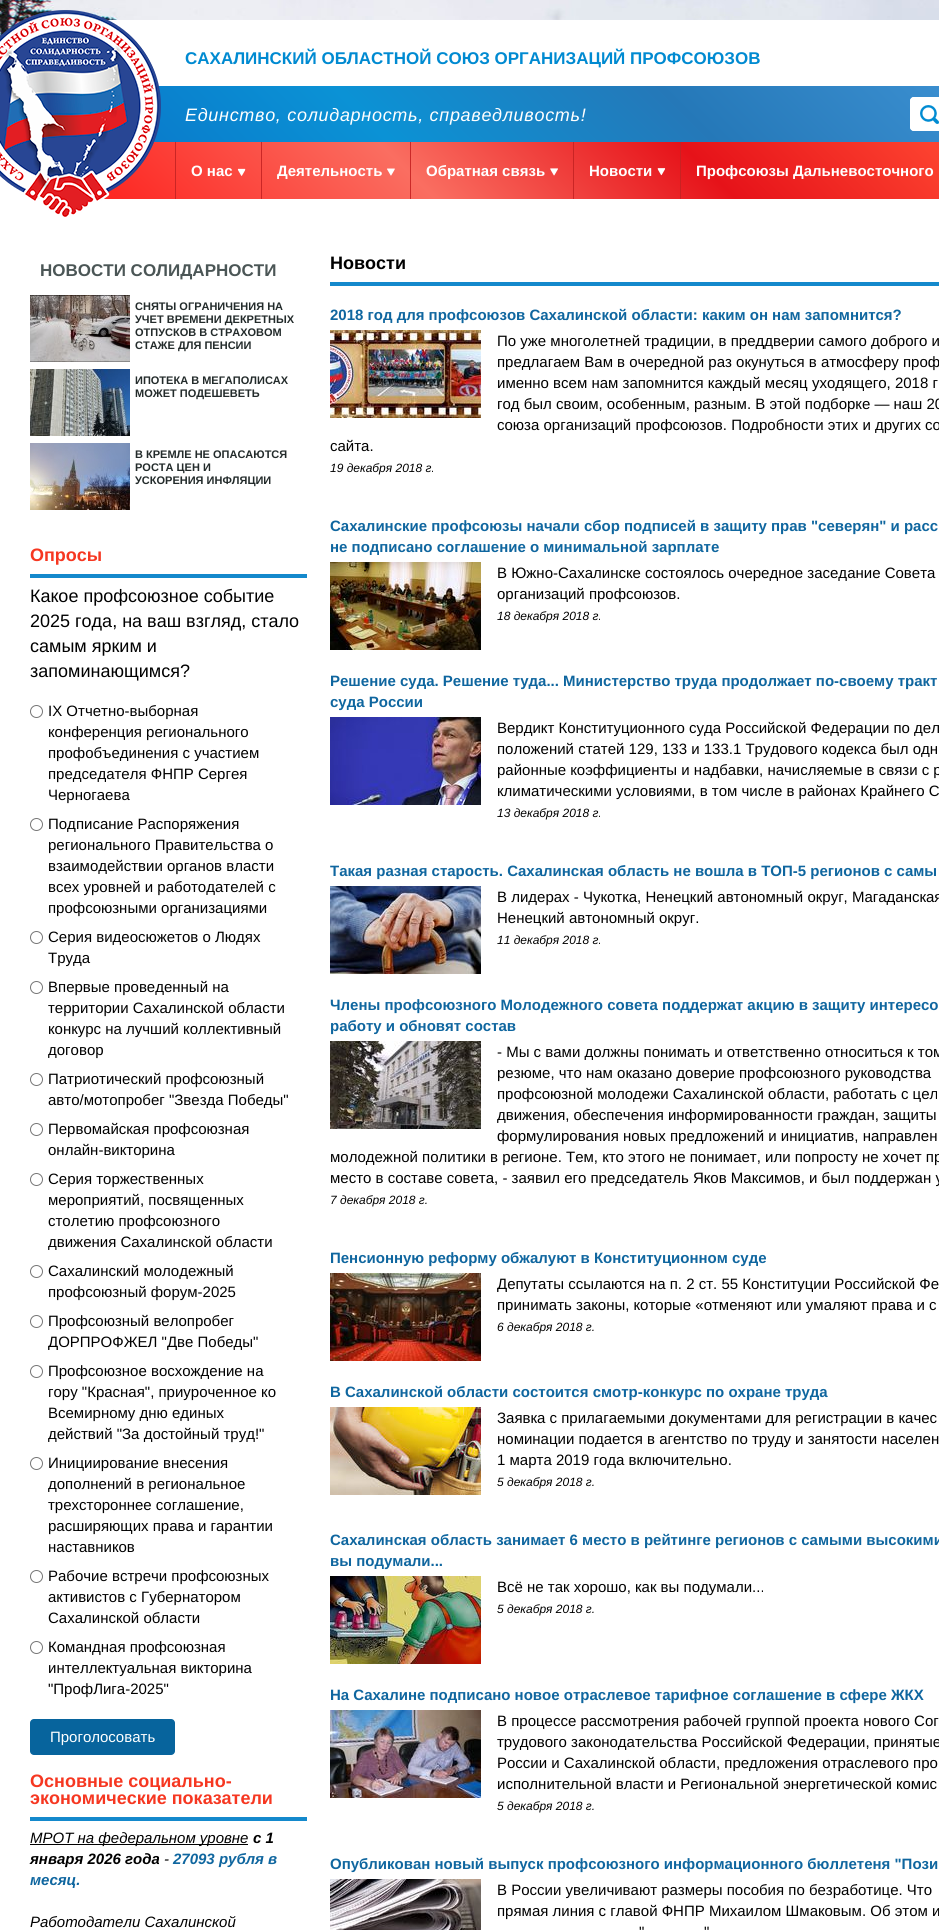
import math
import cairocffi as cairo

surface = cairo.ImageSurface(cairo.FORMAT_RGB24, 939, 1930)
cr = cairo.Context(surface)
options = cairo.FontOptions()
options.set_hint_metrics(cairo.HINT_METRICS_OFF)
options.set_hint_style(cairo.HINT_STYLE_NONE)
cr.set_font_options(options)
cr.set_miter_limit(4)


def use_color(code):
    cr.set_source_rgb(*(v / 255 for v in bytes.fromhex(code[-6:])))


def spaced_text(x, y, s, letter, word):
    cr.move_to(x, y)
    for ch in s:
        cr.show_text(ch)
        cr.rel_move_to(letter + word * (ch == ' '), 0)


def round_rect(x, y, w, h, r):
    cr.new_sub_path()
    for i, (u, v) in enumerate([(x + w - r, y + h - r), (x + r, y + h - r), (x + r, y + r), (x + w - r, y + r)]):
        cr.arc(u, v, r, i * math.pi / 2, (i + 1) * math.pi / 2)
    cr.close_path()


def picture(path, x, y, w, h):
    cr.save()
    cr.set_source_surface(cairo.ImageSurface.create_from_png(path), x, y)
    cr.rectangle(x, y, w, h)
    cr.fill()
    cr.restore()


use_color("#ffffff")
cr.paint()
picture("img1.png", 0, 0, 939, 36)
use_color("#ffffff")
cr.new_path()
cr.move_to(100, 20)
cr.line_to(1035, 20)
cr.curve_to(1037, 20, 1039, 22, 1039, 24)
cr.line_to(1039, 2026)
cr.curve_to(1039, 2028, 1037, 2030, 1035, 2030)
cr.line_to(4, 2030)
cr.curve_to(2, 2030, 0, 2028, 0, 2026)
cr.line_to(0, 120)
cr.curve_to(0, 65, 45, 20, 100, 20)
cr.close_path()
cr.fill()
gradient = cairo.LinearGradient(314, 426, 937, -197)
gradient.add_color_stop_rgba(0, 0.035, 0.447, 0.78, 1)
gradient.add_color_stop_rgba(0.29, 0.043, 0.573, 0.835, 1)
gradient.add_color_stop_rgba(0.55, 0.145, 0.471, 0.722, 1)
gradient.add_color_stop_rgba(0.78, 0.227, 0.557, 0.812, 1)
gradient.add_color_stop_rgba(1, 0.235, 0.58, 0.902, 1)
cr.set_source(gradient)
cr.rectangle(154, 86, 785, 56)
cr.fill()
gradient = cairo.LinearGradient(347, 471, 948, -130)
gradient.add_color_stop_rgba(0, 0.996, 0.125, 0.11, 1)
gradient.add_color_stop_rgba(0.3, 0.98, 0.431, 0.38, 1)
gradient.add_color_stop_rgba(0.55, 0.902, 0.071, 0.098, 1)
gradient.add_color_stop_rgba(0.78, 1, 0.278, 0.196, 1)
gradient.add_color_stop_rgba(1, 0.988, 0.035, 0.051, 1)
cr.set_source(gradient)
cr.rectangle(104, 142, 835, 57)
cr.fill()
picture("img2.png", 0, 10, 161, 207)
cr.select_font_face("Liberation Sans", cairo.FONT_SLANT_NORMAL, cairo.FONT_WEIGHT_BOLD)
cr.set_font_size(17)
use_color("#008ad1")
cr.move_to(185, 64)
cr.show_text("САХАЛИНСКИЙ ОБЛАСТНОЙ СОЮЗ ОРГАНИЗАЦИЙ ПРОФСОЮЗОВ")
cr.select_font_face("Liberation Sans", cairo.FONT_SLANT_ITALIC)
cr.set_font_size(18)
use_color("#ffffff")
spaced_text(185, 121, "Единство, солидарность, справедливость!", 0.7, 0)
round_rect(910, 97, 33, 34, 4)
cr.fill()
picture("img3.png", 920, 105, 19, 19)
round_rect(910.5, 97.5, 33, 33, 3.5)
cr.set_line_width(1)
cr.stroke()
cr.set_source_rgba(0.773, 0.137, 0.137, 0.9)
cr.rectangle(175, 142, 1, 57)
cr.fill()
cr.select_font_face("Liberation Sans", cairo.FONT_SLANT_NORMAL, cairo.FONT_WEIGHT_BOLD)
cr.set_font_size(15)
use_color("#ffffff")
cr.move_to(191, 176)
cr.show_text("О нас")
picture("img4.png", 237, 168, 9, 8)
cr.set_source_rgba(0.773, 0.137, 0.137, 0.9)
cr.rectangle(261, 142, 1, 57)
cr.fill()
use_color("#ffffff")
cr.move_to(277, 176)
cr.show_text("Деятельность")
picture("img5.png", 387, 168, 8, 8)
cr.set_source_rgba(0.773, 0.137, 0.137, 0.9)
cr.rectangle(410, 142, 1, 57)
cr.fill()
use_color("#ffffff")
cr.move_to(426, 176)
cr.show_text("Обратная связь")
picture("img6.png", 550, 168, 8, 8)
cr.set_source_rgba(0.773, 0.137, 0.137, 0.9)
cr.rectangle(573, 142, 1, 57)
cr.fill()
use_color("#ffffff")
cr.move_to(589, 176)
cr.show_text("Новости")
picture("img7.png", 657, 168, 9, 8)
cr.set_source_rgba(0.773, 0.137, 0.137, 0.9)
cr.rectangle(680, 142, 1, 57)
cr.fill()
use_color("#ffffff")
cr.move_to(696, 176)
cr.show_text("Профсоюзы Дальневосточного")
cr.set_font_size(17)
use_color("#4b5656")
cr.move_to(40, 276)
cr.show_text("НОВОСТИ СОЛИДАРНОСТИ")
picture("img8.png", 30, 295, 100, 67)
cr.set_font_size(11)
use_color("#232b2b")
cr.move_to(135, 310)
cr.show_text("СНЯТЫ ОГРАНИЧЕНИЯ НА")
cr.move_to(135, 323)
cr.show_text("УЧЕТ ВРЕМЕНИ ДЕКРЕТНЫХ")
cr.move_to(135, 336)
cr.show_text("ОТПУСКОВ В СТРАХОВОМ")
cr.move_to(135, 349)
cr.show_text("СТАЖЕ ДЛЯ ПЕНСИИ")
picture("img9.png", 30, 369, 100, 67)
cr.move_to(135, 384)
cr.show_text("ИПОТЕКА В МЕГАПОЛИСАХ")
cr.move_to(135, 397)
cr.show_text("МОЖЕТ ПОДЕШЕВЕТЬ")
picture("img10.png", 30, 443, 100, 67)
cr.move_to(135, 458)
cr.show_text("В КРЕМЛЕ НЕ ОПАСАЮТСЯ")
cr.move_to(135, 471)
cr.show_text("РОСТА ЦЕН И")
cr.move_to(135, 484)
cr.show_text("УСКОРЕНИЯ ИНФЛЯЦИИ")
cr.set_font_size(18)
use_color("#f63721")
cr.move_to(30, 561)
cr.show_text("Опросы")
use_color("#1489cc")
cr.rectangle(30, 574, 277, 4)
cr.fill()
cr.select_font_face("Liberation Sans")
use_color("#000000")
cr.move_to(30, 602)
cr.show_text("Какое профсоюзное событие")
cr.move_to(30, 627)
cr.show_text("2025 года, на ваш взгляд, стало")
cr.move_to(30, 652)
cr.show_text("самым ярким и")
cr.move_to(30, 677)
cr.show_text("запоминающимся?")
cr.new_path()
cr.arc(36.5, 711.5, 6, 0, 2 * math.pi)
use_color("#767676")
cr.stroke()
cr.set_font_size(15)
use_color("#000000")
cr.move_to(48, 716)
cr.show_text("IX Отчетно-выборная")
cr.move_to(48, 737)
cr.show_text("конференция регионального")
cr.move_to(48, 758)
cr.show_text("профобъединения с участием")
cr.move_to(48, 779)
cr.show_text("председателя ФНПР Сергея")
cr.move_to(48, 800)
cr.show_text("Черногаева")
cr.new_path()
cr.arc(36.5, 824.5, 6, 0, 2 * math.pi)
use_color("#767676")
cr.stroke()
use_color("#000000")
cr.move_to(48, 829)
cr.show_text("Подписание Распоряжения")
cr.move_to(48, 850)
cr.show_text("регионального Правительства о")
cr.move_to(48, 871)
cr.show_text("взаимодействии органов власти")
cr.move_to(48, 892)
cr.show_text("всех уровней и работодателей с")
cr.move_to(48, 913)
cr.show_text("профсоюзными организациями")
cr.new_path()
cr.arc(36.5, 937.5, 6, 0, 2 * math.pi)
use_color("#767676")
cr.stroke()
use_color("#000000")
cr.move_to(48, 942)
cr.show_text("Серия видеосюжетов о Людях")
cr.move_to(48, 963)
cr.show_text("Труда")
cr.new_path()
cr.arc(36.5, 987.5, 6, 0, 2 * math.pi)
use_color("#767676")
cr.stroke()
use_color("#000000")
cr.move_to(48, 992)
cr.show_text("Впервые проведенный на")
cr.move_to(48, 1013)
cr.show_text("территории Сахалинской области")
cr.move_to(48, 1034)
cr.show_text("конкурс на лучший коллективный")
cr.move_to(48, 1055)
cr.show_text("договор")
cr.new_path()
cr.arc(36.5, 1079.5, 6, 0, 2 * math.pi)
use_color("#767676")
cr.stroke()
use_color("#000000")
cr.move_to(48, 1084)
cr.show_text("Патриотический профсоюзный")
cr.move_to(48, 1105)
cr.show_text("авто/мотопробег \"Звезда Победы\"")
cr.new_path()
cr.arc(36.5, 1129.5, 6, 0, 2 * math.pi)
use_color("#767676")
cr.stroke()
use_color("#000000")
cr.move_to(48, 1134)
cr.show_text("Первомайская профсоюзная")
cr.move_to(48, 1155)
cr.show_text("онлайн-викторина")
cr.new_path()
cr.arc(36.5, 1179.5, 6, 0, 2 * math.pi)
use_color("#767676")
cr.stroke()
use_color("#000000")
cr.move_to(48, 1184)
cr.show_text("Серия торжественных")
cr.move_to(48, 1205)
cr.show_text("мероприятий, посвященных")
cr.move_to(48, 1226)
cr.show_text("столетию профсоюзного")
cr.move_to(48, 1247)
cr.show_text("движения Сахалинской области")
cr.new_path()
cr.arc(36.5, 1271.5, 6, 0, 2 * math.pi)
use_color("#767676")
cr.stroke()
use_color("#000000")
cr.move_to(48, 1276)
cr.show_text("Сахалинский молодежный")
cr.move_to(48, 1297)
cr.show_text("профсоюзный форум-2025")
cr.new_path()
cr.arc(36.5, 1321.5, 6, 0, 2 * math.pi)
use_color("#767676")
cr.stroke()
use_color("#000000")
cr.move_to(48, 1326)
cr.show_text("Профсоюзный велопробег")
cr.move_to(48, 1347)
cr.show_text("ДОРПРОФЖЕЛ \"Две Победы\"")
cr.new_path()
cr.arc(36.5, 1371.5, 6, 0, 2 * math.pi)
use_color("#767676")
cr.stroke()
use_color("#000000")
cr.move_to(48, 1376)
cr.show_text("Профсоюзное восхождение на")
cr.move_to(48, 1397)
cr.show_text("гору \"Красная\", приуроченное ко")
cr.move_to(48, 1418)
cr.show_text("Всемирному дню единых")
cr.move_to(48, 1439)
cr.show_text("действий \"За достойный труд!\"")
cr.new_path()
cr.arc(36.5, 1463.5, 6, 0, 2 * math.pi)
use_color("#767676")
cr.stroke()
use_color("#000000")
cr.move_to(48, 1468)
cr.show_text("Инициирование внесения")
cr.move_to(48, 1489)
cr.show_text("дополнений в региональное")
cr.move_to(48, 1510)
cr.show_text("трехстороннее соглашение,")
cr.move_to(48, 1531)
cr.show_text("расширяющих права и гарантии")
cr.move_to(48, 1552)
cr.show_text("наставников")
cr.new_path()
cr.arc(36.5, 1576.5, 6, 0, 2 * math.pi)
use_color("#767676")
cr.stroke()
use_color("#000000")
cr.move_to(48, 1581)
cr.show_text("Рабочие встречи профсоюзных")
cr.move_to(48, 1602)
cr.show_text("активистов с Губернатором")
cr.move_to(48, 1623)
cr.show_text("Сахалинской области")
cr.new_path()
cr.arc(36.5, 1647.5, 6, 0, 2 * math.pi)
use_color("#767676")
cr.stroke()
use_color("#000000")
cr.move_to(48, 1652)
cr.show_text("Командная профсоюзная")
cr.move_to(48, 1673)
cr.show_text("интеллектуальная викторина")
cr.move_to(48, 1694)
cr.show_text("\"ПрофЛига-2025\"")
use_color("#07649d")
round_rect(30, 1719, 145, 36, 4)
cr.fill()
use_color("#ffffff")
cr.move_to(50, 1742)
cr.show_text("Проголосовать")
cr.select_font_face("Liberation Sans", cairo.FONT_SLANT_NORMAL, cairo.FONT_WEIGHT_BOLD)
cr.set_font_size(18)
use_color("#f63721")
cr.move_to(30, 1787)
cr.show_text("Основные социально-")
cr.move_to(30, 1804)
cr.show_text("экономические показатели")
use_color("#1489cc")
cr.rectangle(30, 1817, 277, 4)
cr.fill()
use_color("#000000")
cr.rectangle(30, 1844, 218, 1)
cr.fill()
cr.select_font_face("Liberation Sans", cairo.FONT_SLANT_ITALIC)
cr.set_font_size(15)
cr.move_to(30, 1843)
cr.show_text("МРОТ на федеральном уровне")
cr.select_font_face("Liberation Sans", cairo.FONT_SLANT_ITALIC, cairo.FONT_WEIGHT_BOLD)
cr.move_to(253, 1843)
cr.show_text("с 1")
cr.move_to(30, 1864)
cr.show_text("января 2026 года")
cr.select_font_face("Liberation Sans", cairo.FONT_SLANT_ITALIC)
cr.move_to(164, 1864)
cr.show_text("-")
cr.select_font_face("Liberation Sans", cairo.FONT_SLANT_ITALIC, cairo.FONT_WEIGHT_BOLD)
use_color("#0f669f")
cr.move_to(173, 1864)
cr.show_text("27093 рубля в")
cr.move_to(30, 1885)
cr.show_text("месяц.")
cr.select_font_face("Liberation Sans", cairo.FONT_SLANT_ITALIC)
use_color("#000000")
cr.move_to(30, 1927)
cr.show_text("Работодатели Сахалинской")
cr.select_font_face("Liberation Sans", cairo.FONT_SLANT_NORMAL, cairo.FONT_WEIGHT_BOLD)
cr.set_font_size(18)
cr.move_to(330, 269)
cr.show_text("Новости")
use_color("#1489cc")
cr.rectangle(330, 282, 609, 4)
cr.fill()
cr.set_font_size(15)
use_color("#0f669f")
cr.move_to(330, 320)
cr.show_text("2018 год для профсоюзов Сахалинской области: каким он нам запомнится?")
picture("img11.png", 330, 330, 151, 88)
cr.select_font_face("Liberation Sans")
use_color("#000000")
cr.move_to(497, 346)
cr.show_text("По уже многолетней традиции, в преддверии самого доброго и")
cr.move_to(497, 367)
cr.show_text("предлагаем Вам в очередной раз окунуться в атмосферу проф")
cr.move_to(497, 388)
cr.show_text("именно всем нам запомнится каждый месяц уходящего, 2018 г")
cr.move_to(497, 409)
cr.show_text("год был своим, особенным, разным. В этой подборке — наш 20")
cr.move_to(497, 430)
cr.show_text("союза организаций профсоюзов. Подробности этих и других со")
cr.move_to(330, 451)
cr.show_text("сайта.")
cr.select_font_face("Liberation Sans", cairo.FONT_SLANT_ITALIC)
cr.set_font_size(12)
cr.move_to(330, 472)
cr.show_text("19 декабря 2018 г.")
cr.select_font_face("Liberation Sans", cairo.FONT_SLANT_NORMAL, cairo.FONT_WEIGHT_BOLD)
cr.set_font_size(15)
use_color("#0f669f")
cr.move_to(330, 531)
cr.show_text("Сахалинские профсоюзы начали сбор подписей в защиту прав \"северян\" и расс")
cr.move_to(330, 552)
cr.show_text("не подписано соглашение о минимальной зарплате")
picture("img12.png", 330, 562, 151, 88)
cr.select_font_face("Liberation Sans")
use_color("#000000")
cr.move_to(497, 578)
cr.show_text("В Южно-Сахалинске состоялось очередное заседание Совета")
cr.move_to(497, 599)
cr.show_text("организаций профсоюзов.")
cr.select_font_face("Liberation Sans", cairo.FONT_SLANT_ITALIC)
cr.set_font_size(12)
cr.move_to(497, 620)
cr.show_text("18 декабря 2018 г.")
cr.select_font_face("Liberation Sans", cairo.FONT_SLANT_NORMAL, cairo.FONT_WEIGHT_BOLD)
cr.set_font_size(15)
use_color("#0f669f")
cr.move_to(330, 686)
cr.show_text("Решение суда. Решение туда... Министерство труда продолжает по-своему тракт")
cr.move_to(330, 707)
cr.show_text("суда России")
picture("img13.png", 330, 717, 151, 88)
cr.select_font_face("Liberation Sans")
use_color("#000000")
cr.move_to(497, 733)
cr.show_text("Вердикт Конституционного суда Российской Федерации по дел")
cr.move_to(497, 754)
cr.show_text("положений статей 129, 133 и 133.1 Трудового кодекса был одн")
cr.move_to(497, 775)
cr.show_text("районные коэффициенты и надбавки, начисляемые в связи с р")
cr.move_to(497, 796)
cr.show_text("климатическими условиями, в том числе в районах Крайнего С")
cr.select_font_face("Liberation Sans", cairo.FONT_SLANT_ITALIC)
cr.set_font_size(12)
cr.move_to(497, 817)
cr.show_text("13 декабря 2018 г.")
cr.select_font_face("Liberation Sans", cairo.FONT_SLANT_NORMAL, cairo.FONT_WEIGHT_BOLD)
cr.set_font_size(15)
use_color("#0f669f")
cr.move_to(330, 876)
cr.show_text("Такая разная старость. Сахалинская область не вошла в ТОП-5 регионов с самы")
picture("img14.png", 330, 886, 151, 88)
cr.select_font_face("Liberation Sans")
use_color("#000000")
cr.move_to(497, 902)
cr.show_text("В лидерах - Чукотка, Ненецкий автономный округ, Магаданская")
cr.move_to(497, 923)
cr.show_text("Ненецкий автономный округ.")
cr.select_font_face("Liberation Sans", cairo.FONT_SLANT_ITALIC)
cr.set_font_size(12)
cr.move_to(497, 944)
cr.show_text("11 декабря 2018 г.")
cr.select_font_face("Liberation Sans", cairo.FONT_SLANT_NORMAL, cairo.FONT_WEIGHT_BOLD)
cr.set_font_size(15)
use_color("#0f669f")
cr.move_to(330, 1010)
cr.show_text("Члены профсоюзного Молодежного совета поддержат акцию в защиту интересо")
cr.move_to(330, 1031)
cr.show_text("работу и обновят состав")
picture("img15.png", 330, 1041, 151, 88)
cr.select_font_face("Liberation Sans")
use_color("#000000")
cr.move_to(497, 1057)
cr.show_text("- Мы с вами должны понимать и ответственно относиться к том")
cr.move_to(497, 1078)
cr.show_text("резюме, что нам оказано доверие профсоюзного руководства")
cr.move_to(497, 1099)
cr.show_text("профсоюзной молодежи Сахалинской области, работать с цел")
cr.move_to(497, 1120)
cr.show_text("движения, обеспечения информированности граждан, защиты")
cr.move_to(497, 1141)
cr.show_text("формулирования новых предложений и инициатив, направлен")
cr.move_to(330, 1162)
cr.show_text("молодежной политики в регионе. Тем, кто этого не понимает, или попросту не хочет пр")
cr.move_to(330, 1183)
cr.show_text("место в составе совета, - заявил его председатель Яков Максимов, и был поддержан у")
cr.select_font_face("Liberation Sans", cairo.FONT_SLANT_ITALIC)
cr.set_font_size(12)
cr.move_to(330, 1204)
cr.show_text("7 декабря 2018 г.")
cr.select_font_face("Liberation Sans", cairo.FONT_SLANT_NORMAL, cairo.FONT_WEIGHT_BOLD)
cr.set_font_size(15)
use_color("#0f669f")
cr.move_to(330, 1263)
cr.show_text("Пенсионную реформу обжалуют в Конституционном суде")
picture("img16.png", 330, 1273, 151, 88)
cr.select_font_face("Liberation Sans")
use_color("#000000")
cr.move_to(497, 1289)
cr.show_text("Депутаты ссылаются на п. 2 ст. 55 Конституции Российской Фе")
cr.move_to(497, 1310)
cr.show_text("принимать законы, которые «отменяют или умаляют права и с")
cr.select_font_face("Liberation Sans", cairo.FONT_SLANT_ITALIC)
cr.set_font_size(12)
cr.move_to(497, 1331)
cr.show_text("6 декабря 2018 г.")
cr.select_font_face("Liberation Sans", cairo.FONT_SLANT_NORMAL, cairo.FONT_WEIGHT_BOLD)
cr.set_font_size(15)
use_color("#0f669f")
cr.move_to(330, 1397)
cr.show_text("В Сахалинской области состоится смотр-конкурс по охране труда")
picture("img17.png", 330, 1407, 151, 88)
cr.select_font_face("Liberation Sans")
use_color("#000000")
cr.move_to(497, 1423)
cr.show_text("Заявка с прилагаемыми документами для регистрации в качес")
cr.move_to(497, 1444)
cr.show_text("номинации подается в агентство по труду и занятости населен")
cr.move_to(497, 1465)
cr.show_text("1 марта 2019 года включительно.")
cr.select_font_face("Liberation Sans", cairo.FONT_SLANT_ITALIC)
cr.set_font_size(12)
cr.move_to(497, 1486)
cr.show_text("5 декабря 2018 г.")
cr.select_font_face("Liberation Sans", cairo.FONT_SLANT_NORMAL, cairo.FONT_WEIGHT_BOLD)
cr.set_font_size(15)
use_color("#0f669f")
cr.move_to(330, 1545)
cr.show_text("Сахалинская область занимает 6 место в рейтинге регионов с самыми высокими")
cr.move_to(330, 1566)
cr.show_text("вы подумали...")
picture("img18.png", 330, 1576, 151, 88)
cr.select_font_face("Liberation Sans")
use_color("#000000")
cr.move_to(497, 1592)
cr.show_text("Всё не так хорошо, как вы подумали...")
cr.select_font_face("Liberation Sans", cairo.FONT_SLANT_ITALIC)
cr.set_font_size(12)
cr.move_to(497, 1613)
cr.show_text("5 декабря 2018 г.")
cr.select_font_face("Liberation Sans", cairo.FONT_SLANT_NORMAL, cairo.FONT_WEIGHT_BOLD)
cr.set_font_size(15)
use_color("#0f669f")
cr.move_to(330, 1700)
cr.show_text("На Сахалине подписано новое отраслевое тарифное соглашение в сфере ЖКХ")
picture("img19.png", 330, 1710, 151, 88)
cr.select_font_face("Liberation Sans")
use_color("#000000")
cr.move_to(497, 1726)
cr.show_text("В процессе рассмотрения рабочей группой проекта нового Сог")
cr.move_to(497, 1747)
cr.show_text("трудового законодательства Российской Федерации, принятые")
cr.move_to(497, 1768)
cr.show_text("России и Сахалинской области, предложения отраслевого про")
cr.move_to(497, 1789)
cr.show_text("исполнительной власти и Региональной энергетической комис")
cr.select_font_face("Liberation Sans", cairo.FONT_SLANT_ITALIC)
cr.set_font_size(12)
cr.move_to(497, 1810)
cr.show_text("5 декабря 2018 г.")
cr.select_font_face("Liberation Sans", cairo.FONT_SLANT_NORMAL, cairo.FONT_WEIGHT_BOLD)
cr.set_font_size(15)
use_color("#0f669f")
cr.move_to(330, 1869)
cr.show_text("Опубликован новый выпуск профсоюзного информационного бюллетеня \"Пози")
picture("img20.png", 330, 1879, 151, 51)
cr.select_font_face("Liberation Sans")
use_color("#000000")
cr.move_to(497, 1895)
cr.show_text("В России увеличивают размеры пособия по безработице. Что")
cr.move_to(497, 1916)
cr.show_text("прямая линия с главой ФНПР Михаилом Шмаковым. Об этом и")
cr.move_to(639, 1937)
cr.show_text("\"")
cr.move_to(704, 1937)
cr.show_text("\"")
surface.write_to_png("result.png")
